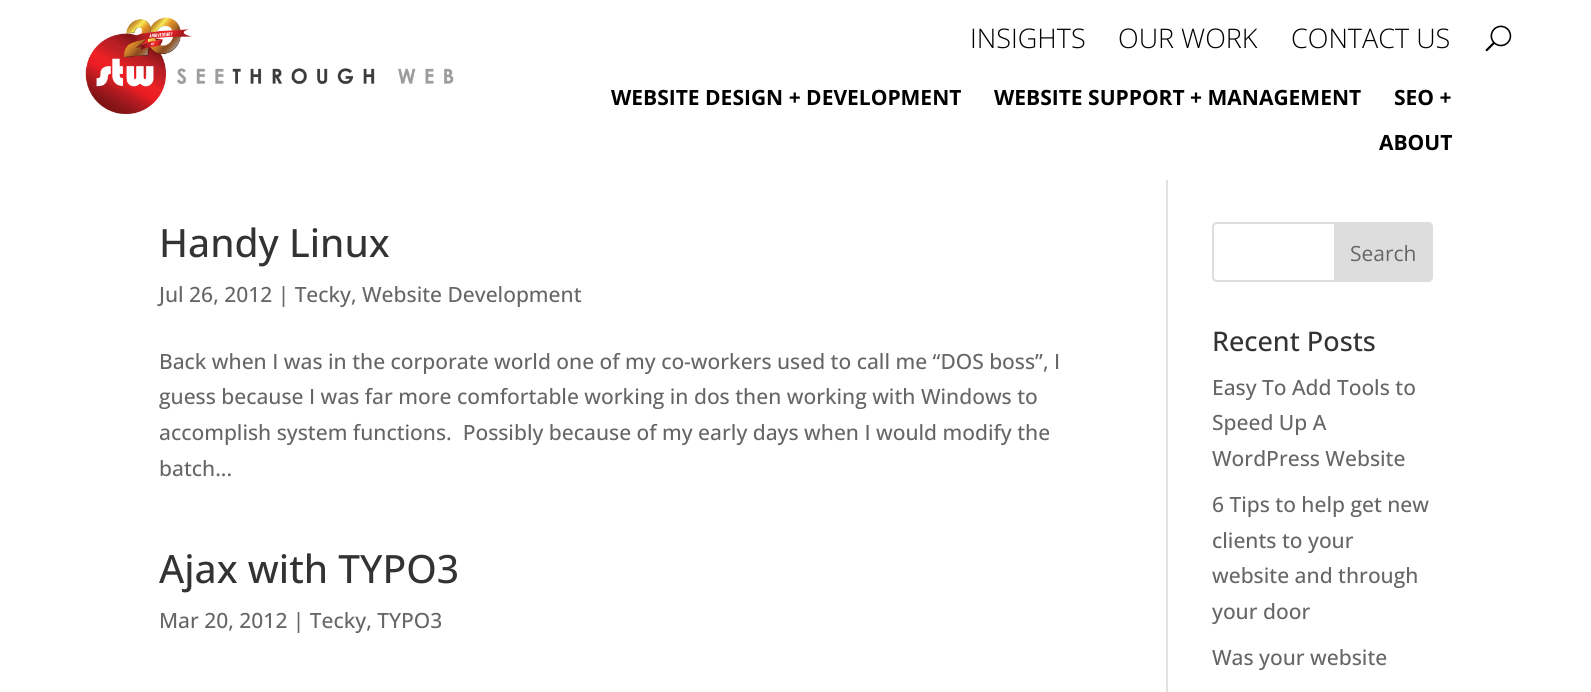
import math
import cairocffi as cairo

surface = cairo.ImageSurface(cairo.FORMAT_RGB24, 1591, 692)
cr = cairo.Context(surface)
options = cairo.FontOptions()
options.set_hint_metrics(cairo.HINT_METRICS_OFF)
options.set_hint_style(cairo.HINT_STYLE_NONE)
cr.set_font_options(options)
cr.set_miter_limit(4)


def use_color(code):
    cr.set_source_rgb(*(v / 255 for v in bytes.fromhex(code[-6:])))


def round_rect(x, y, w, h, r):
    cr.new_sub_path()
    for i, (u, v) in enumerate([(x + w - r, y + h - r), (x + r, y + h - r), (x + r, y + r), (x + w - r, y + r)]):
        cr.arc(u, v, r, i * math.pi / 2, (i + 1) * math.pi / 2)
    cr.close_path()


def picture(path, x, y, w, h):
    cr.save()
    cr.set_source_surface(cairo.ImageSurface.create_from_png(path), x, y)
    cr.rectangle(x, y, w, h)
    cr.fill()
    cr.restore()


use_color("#ffffff")
cr.paint()
picture("img1.png", 85, 17, 369, 98)
cr.select_font_face("Open Sans Light")
cr.set_font_size(27)
use_color("#000000")
cr.move_to(970, 48)
cr.show_text("INSIGHTS")
cr.move_to(1118, 48)
cr.show_text("OUR WORK")
cr.move_to(1291, 48)
cr.show_text("CONTACT US")
picture("img2.png", 1485, 25, 27, 27)
cr.select_font_face("Open Sans", cairo.FONT_SLANT_NORMAL, cairo.FONT_WEIGHT_BOLD)
cr.set_font_size(21)
cr.move_to(611, 105)
cr.show_text("WEBSITE DESIGN + DEVELOPMENT")
cr.move_to(994, 105)
cr.show_text("WEBSITE SUPPORT + MANAGEMENT")
cr.move_to(1394, 105)
cr.show_text("SEO +")
cr.move_to(1379, 150)
cr.show_text("ABOUT")
use_color("#e2e2e2")
cr.rectangle(1166, 180, 2, 512)
cr.fill()
cr.select_font_face("Open Sans Medium")
cr.set_font_size(39)
use_color("#333333")
cr.move_to(159, 257)
cr.show_text("Handy Linux")
cr.set_font_size(21)
use_color("#666666")
cr.move_to(159, 302)
cr.show_text("Jul 26, 2012 | Tecky, Website Development")
cr.move_to(159, 369)
cr.show_text("Back when I was in the corporate world one of my co-workers used to call me “DOS boss”, I")
cr.move_to(159, 404)
cr.show_text("guess because I was far more comfortable working in dos then working with Windows to")
cr.move_to(159, 440)
cr.show_text("accomplish system functions.  Possibly because of my early days when I would modify the")
cr.move_to(159, 476)
cr.show_text("batch...")
cr.set_font_size(39)
use_color("#333333")
cr.move_to(159, 583)
cr.show_text("Ajax with TYPO3")
cr.set_font_size(21)
use_color("#666666")
cr.move_to(159, 628)
cr.show_text("Mar 20, 2012 | Tecky, TYPO3")
round_rect(1213, 223, 219, 58, 4)
use_color("#dddddd")
cr.stroke()
cr.new_path()
cr.move_to(1335, 223)
cr.line_to(1428, 223)
cr.curve_to(1430, 223, 1432, 225, 1432, 227)
cr.line_to(1432, 277)
cr.curve_to(1432, 279, 1430, 281, 1428, 281)
cr.line_to(1335, 281)
cr.close_path()
cr.fill_preserve()
cr.stroke()
cr.select_font_face("Open Sans")
use_color("#666666")
cr.move_to(1350, 261)
cr.show_text("Search")
cr.select_font_face("Open Sans Medium")
cr.set_font_size(27)
use_color("#333333")
cr.move_to(1212, 351)
cr.show_text("Recent Posts")
cr.set_font_size(21)
use_color("#666666")
cr.move_to(1212, 395)
cr.show_text("Easy To Add Tools to")
cr.move_to(1212, 430)
cr.show_text("Speed Up A")
cr.move_to(1212, 466)
cr.show_text("WordPress Website")
cr.move_to(1212, 512)
cr.show_text("6 Tips to help get new")
cr.move_to(1212, 548)
cr.show_text("clients to your")
cr.move_to(1212, 583)
cr.show_text("website and through")
cr.move_to(1212, 619)
cr.show_text("your door")
cr.move_to(1212, 665)
cr.show_text("Was your website")
surface.write_to_png("result.png")
